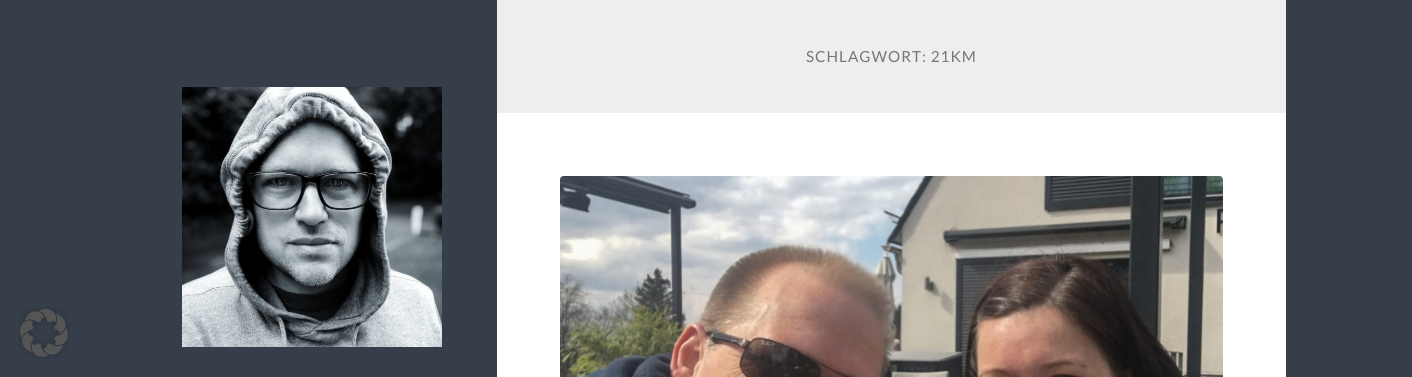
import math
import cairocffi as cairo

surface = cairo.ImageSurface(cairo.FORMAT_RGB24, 1412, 377)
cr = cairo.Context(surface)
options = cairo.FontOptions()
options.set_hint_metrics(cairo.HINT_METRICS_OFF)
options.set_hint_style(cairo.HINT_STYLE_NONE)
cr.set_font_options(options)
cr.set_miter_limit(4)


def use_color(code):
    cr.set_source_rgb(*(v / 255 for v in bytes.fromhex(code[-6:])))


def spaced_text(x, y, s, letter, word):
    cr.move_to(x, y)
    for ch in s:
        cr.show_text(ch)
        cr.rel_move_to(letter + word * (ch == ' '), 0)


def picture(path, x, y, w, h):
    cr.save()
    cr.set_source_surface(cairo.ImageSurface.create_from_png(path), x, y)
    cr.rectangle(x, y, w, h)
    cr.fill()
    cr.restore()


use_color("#353e49")
cr.paint()
use_color("#ffffff")
cr.rectangle(497, 113, 789, 264)
cr.fill()
use_color("#eeeeee")
cr.rectangle(497, 0, 789, 113)
cr.fill()
cr.select_font_face("Lato")
cr.set_font_size(15.25)
use_color("#767676")
spaced_text(806, 62, "SCHLAGWORT: 21KM", 1, 0)
picture("img1.png", 560, 176, 663, 201)
picture("img2.png", 182, 87, 260, 260)
picture("img3.png", 18, 307, 52, 52)
surface.write_to_png("result.png")
